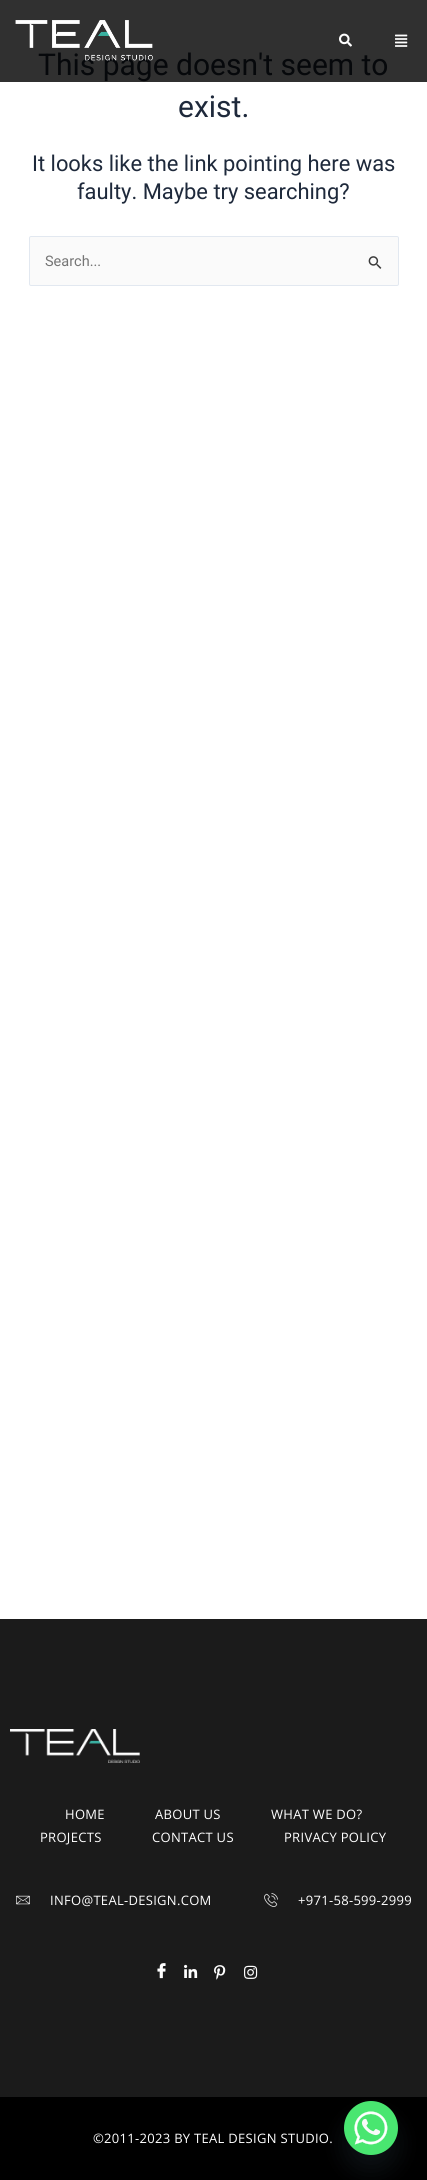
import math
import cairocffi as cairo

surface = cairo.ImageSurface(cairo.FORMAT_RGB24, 427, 2180)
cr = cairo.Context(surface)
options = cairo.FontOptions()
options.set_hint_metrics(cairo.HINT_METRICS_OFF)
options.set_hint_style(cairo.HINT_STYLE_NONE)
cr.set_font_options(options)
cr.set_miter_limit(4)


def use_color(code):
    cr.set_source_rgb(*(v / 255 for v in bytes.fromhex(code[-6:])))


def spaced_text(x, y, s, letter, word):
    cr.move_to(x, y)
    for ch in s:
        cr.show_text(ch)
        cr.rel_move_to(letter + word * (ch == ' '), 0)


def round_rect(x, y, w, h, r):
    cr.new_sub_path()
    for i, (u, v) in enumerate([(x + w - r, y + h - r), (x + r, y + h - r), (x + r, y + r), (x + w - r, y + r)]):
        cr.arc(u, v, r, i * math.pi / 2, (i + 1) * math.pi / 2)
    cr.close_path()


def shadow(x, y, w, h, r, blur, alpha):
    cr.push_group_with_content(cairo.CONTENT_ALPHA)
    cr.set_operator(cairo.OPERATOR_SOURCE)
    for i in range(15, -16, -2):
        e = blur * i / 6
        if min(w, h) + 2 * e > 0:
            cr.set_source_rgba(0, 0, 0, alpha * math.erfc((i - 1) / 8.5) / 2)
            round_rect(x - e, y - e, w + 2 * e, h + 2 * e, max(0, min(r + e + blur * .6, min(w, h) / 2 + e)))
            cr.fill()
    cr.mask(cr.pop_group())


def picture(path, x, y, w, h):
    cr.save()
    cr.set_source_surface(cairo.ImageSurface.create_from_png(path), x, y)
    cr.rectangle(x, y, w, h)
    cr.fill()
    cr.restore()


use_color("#1b1b1b")
cr.paint()
use_color("#303030")
cr.rectangle(0, 0, 427, 82)
cr.fill()
cr.select_font_face("Roboto")
cr.set_font_size(30)
use_color("#06080b")
cr.move_to(38, 75)
cr.show_text("This page doesn't seem to")
picture("img1.png", 15, 20, 138, 41)
picture("img2.png", 339, 33, 13, 14)
picture("img3.png", 395, 34, 13, 13)
use_color("#ffffff")
cr.rectangle(0, 82, 427, 1537)
cr.fill()
use_color("#1e293b")
cr.move_to(178, 117)
cr.show_text("exist.")
cr.set_font_size(21.9)
cr.move_to(32, 171)
cr.show_text("It looks like the link pointing here was")
cr.move_to(77, 199)
cr.show_text("faulty. Maybe try searching?")
use_color("#fafafa")
round_rect(29.5, 236.5, 369, 49, 1.5)
cr.fill_preserve()
use_color("#e2e8f0")
cr.set_line_width(1)
cr.stroke()
cr.set_font_size(14.5)
use_color("#757575")
cr.move_to(45, 266)
cr.show_text("Search...")
picture("img4.png", 368, 256, 14, 13)
picture("img5.png", 10, 1729, 130, 34)
cr.select_font_face("Open Sans")
cr.set_font_size(13)
use_color("#ffffff")
spaced_text(65, 1819, "HOME", 0.3, 0)
spaced_text(155, 1819, "ABOUT US", 0.3, 0)
spaced_text(271, 1819, "WHAT WE DO?", 0.3, 0)
spaced_text(40, 1842, "PROJECTS", 0.3, 0)
spaced_text(152, 1842, "CONTACT US", 0.3, 0)
spaced_text(284, 1842, "PRIVACY POLICY", 0.3, 0)
picture("img6.png", 16, 1895, 14, 10)
spaced_text(50, 1905, "INFO@TEAL-DESIGN.COM", 0.3, 0)
picture("img7.png", 264, 1893, 14, 14)
spaced_text(298, 1905, "+971-58-599-2999", 0.3, 0)
picture("img8.png", 157, 1963, 9, 16)
picture("img9.png", 184, 1964, 14, 14)
picture("img10.png", 214, 1965, 12, 15)
picture("img11.png", 244, 1965, 14, 14)
use_color("#000000")
cr.rectangle(0, 2097, 427, 83)
cr.fill()
use_color("#ffffff")
spaced_text(93, 2143, "©2011-2023 BY TEAL DESIGN STUDIO.", 0.3, 0)
use_color("#49687e")
shadow(344, 2117, 54, 54, 27, 12, 0.16)
picture("img12.png", 344, 2101, 54, 54)
surface.write_to_png("result.png")
